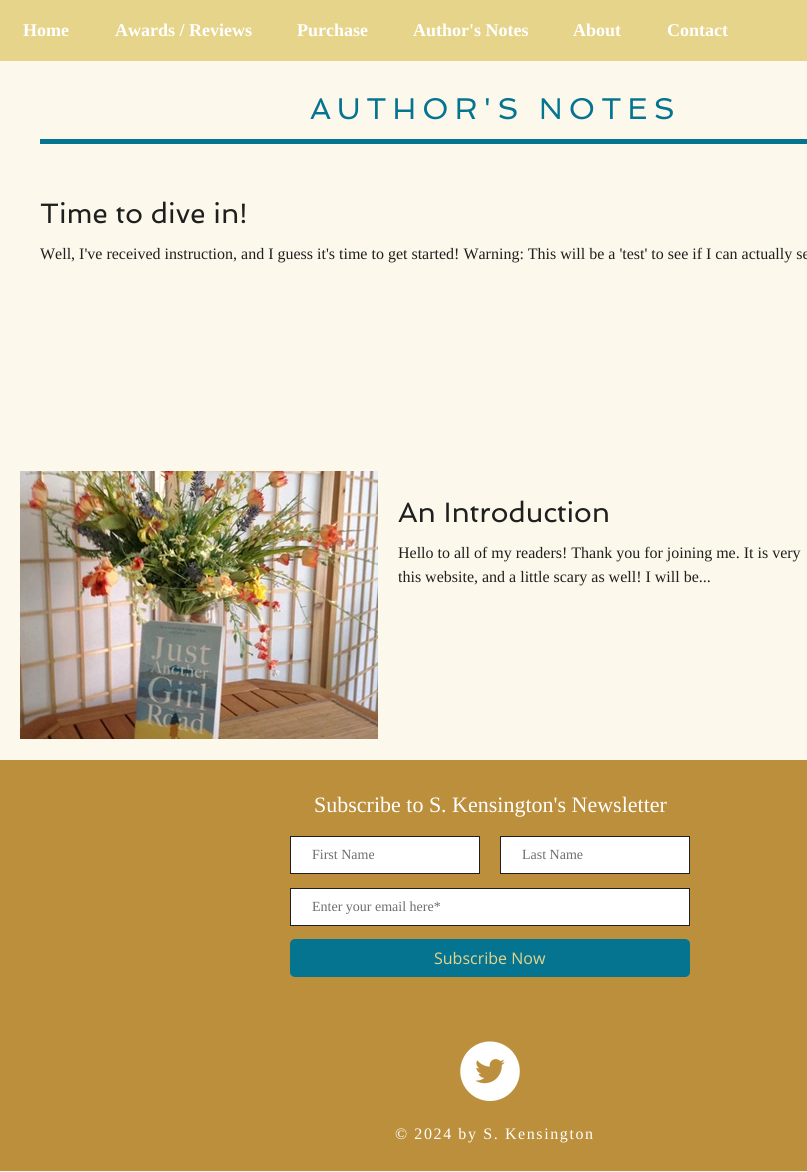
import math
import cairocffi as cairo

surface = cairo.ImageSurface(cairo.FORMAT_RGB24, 807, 1172)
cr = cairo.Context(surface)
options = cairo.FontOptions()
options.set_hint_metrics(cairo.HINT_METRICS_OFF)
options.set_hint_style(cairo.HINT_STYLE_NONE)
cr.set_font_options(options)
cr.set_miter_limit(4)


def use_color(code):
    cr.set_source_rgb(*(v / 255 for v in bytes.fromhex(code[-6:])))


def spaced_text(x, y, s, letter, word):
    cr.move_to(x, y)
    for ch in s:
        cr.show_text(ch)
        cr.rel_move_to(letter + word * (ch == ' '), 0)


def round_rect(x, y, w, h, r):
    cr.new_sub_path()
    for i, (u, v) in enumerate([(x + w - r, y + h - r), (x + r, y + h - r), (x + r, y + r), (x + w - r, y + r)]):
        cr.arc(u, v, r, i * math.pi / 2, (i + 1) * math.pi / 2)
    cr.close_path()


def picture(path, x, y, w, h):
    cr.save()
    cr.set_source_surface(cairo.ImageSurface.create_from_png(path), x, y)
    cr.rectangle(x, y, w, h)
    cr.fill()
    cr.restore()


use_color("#fcf8eb")
cr.paint()
use_color("#e6d48a")
cr.rectangle(0, 0, 807, 61)
cr.fill()
cr.select_font_face("Liberation Serif", cairo.FONT_SLANT_NORMAL, cairo.FONT_WEIGHT_BOLD)
cr.set_font_size(18)
use_color("#ffffff")
cr.move_to(23, 36)
cr.show_text("Home")
cr.move_to(115, 36)
cr.show_text("Awards / Reviews")
cr.move_to(297, 36)
cr.show_text("Purchase")
cr.move_to(413, 36)
cr.show_text("Author's Notes")
cr.move_to(573, 36)
cr.show_text("About")
cr.move_to(667, 36)
cr.show_text("Contact")
cr.select_font_face("Spinnaker")
cr.set_font_size(30)
use_color("#057490")
spaced_text(310, 119, "AUTHOR'S NOTES", 6, 0)
cr.rectangle(40, 139, 767, 5)
cr.fill()
cr.set_font_size(28)
use_color("#1f1f1f")
cr.move_to(40, 223)
cr.show_text("Time to dive in!")
cr.select_font_face("Liberation Serif")
cr.set_font_size(16)
cr.move_to(40, 259)
cr.show_text("Well, I've received instruction, and I guess it's time to get started! Warning: This will be a 'test' to see if I can actually se")
picture("img1.png", 20, 471, 358, 268)
cr.select_font_face("Spinnaker")
cr.set_font_size(28)
cr.move_to(398, 522)
cr.show_text("An Introduction")
cr.select_font_face("Liberation Serif")
cr.set_font_size(16)
cr.move_to(398, 558)
cr.show_text("Hello to all of my readers! Thank you for joining me. It is very")
cr.move_to(398, 582)
cr.show_text("this website, and a little scary as well! I will be...")
use_color("#bc8f3c")
cr.rectangle(0, 760, 807, 411)
cr.fill()
cr.set_font_size(22)
use_color("#ffffff")
cr.move_to(314, 812)
cr.show_text("Subscribe to S. Kensington's Newsletter")
cr.rectangle(290.5, 836.5, 189, 37)
cr.fill_preserve()
use_color("#1f1f1f")
cr.set_line_width(1)
cr.stroke()
cr.set_font_size(14)
use_color("#6e6e6e")
cr.move_to(312, 859)
cr.show_text("First Name")
use_color("#ffffff")
cr.rectangle(500.5, 836.5, 189, 37)
cr.fill_preserve()
use_color("#1f1f1f")
cr.stroke()
use_color("#6e6e6e")
cr.move_to(522, 859)
cr.show_text("Last Name")
use_color("#ffffff")
cr.rectangle(290.5, 888.5, 399, 37)
cr.fill_preserve()
use_color("#1f1f1f")
cr.stroke()
use_color("#6e6e6e")
cr.move_to(312, 911)
cr.show_text("Enter your email here*")
use_color("#057490")
round_rect(290, 939, 400, 38, 5)
cr.fill()
cr.select_font_face("Open Sans")
cr.set_font_size(16)
use_color("#e6d48a")
cr.move_to(434, 964)
cr.show_text("Subscribe Now")
picture("img2.png", 460, 1041, 60, 60)
cr.select_font_face("Liberation Serif")
use_color("#ffffff")
spaced_text(395, 1139, "© 2024 by S. Kensington", 1.6, 0)
surface.write_to_png("result.png")
